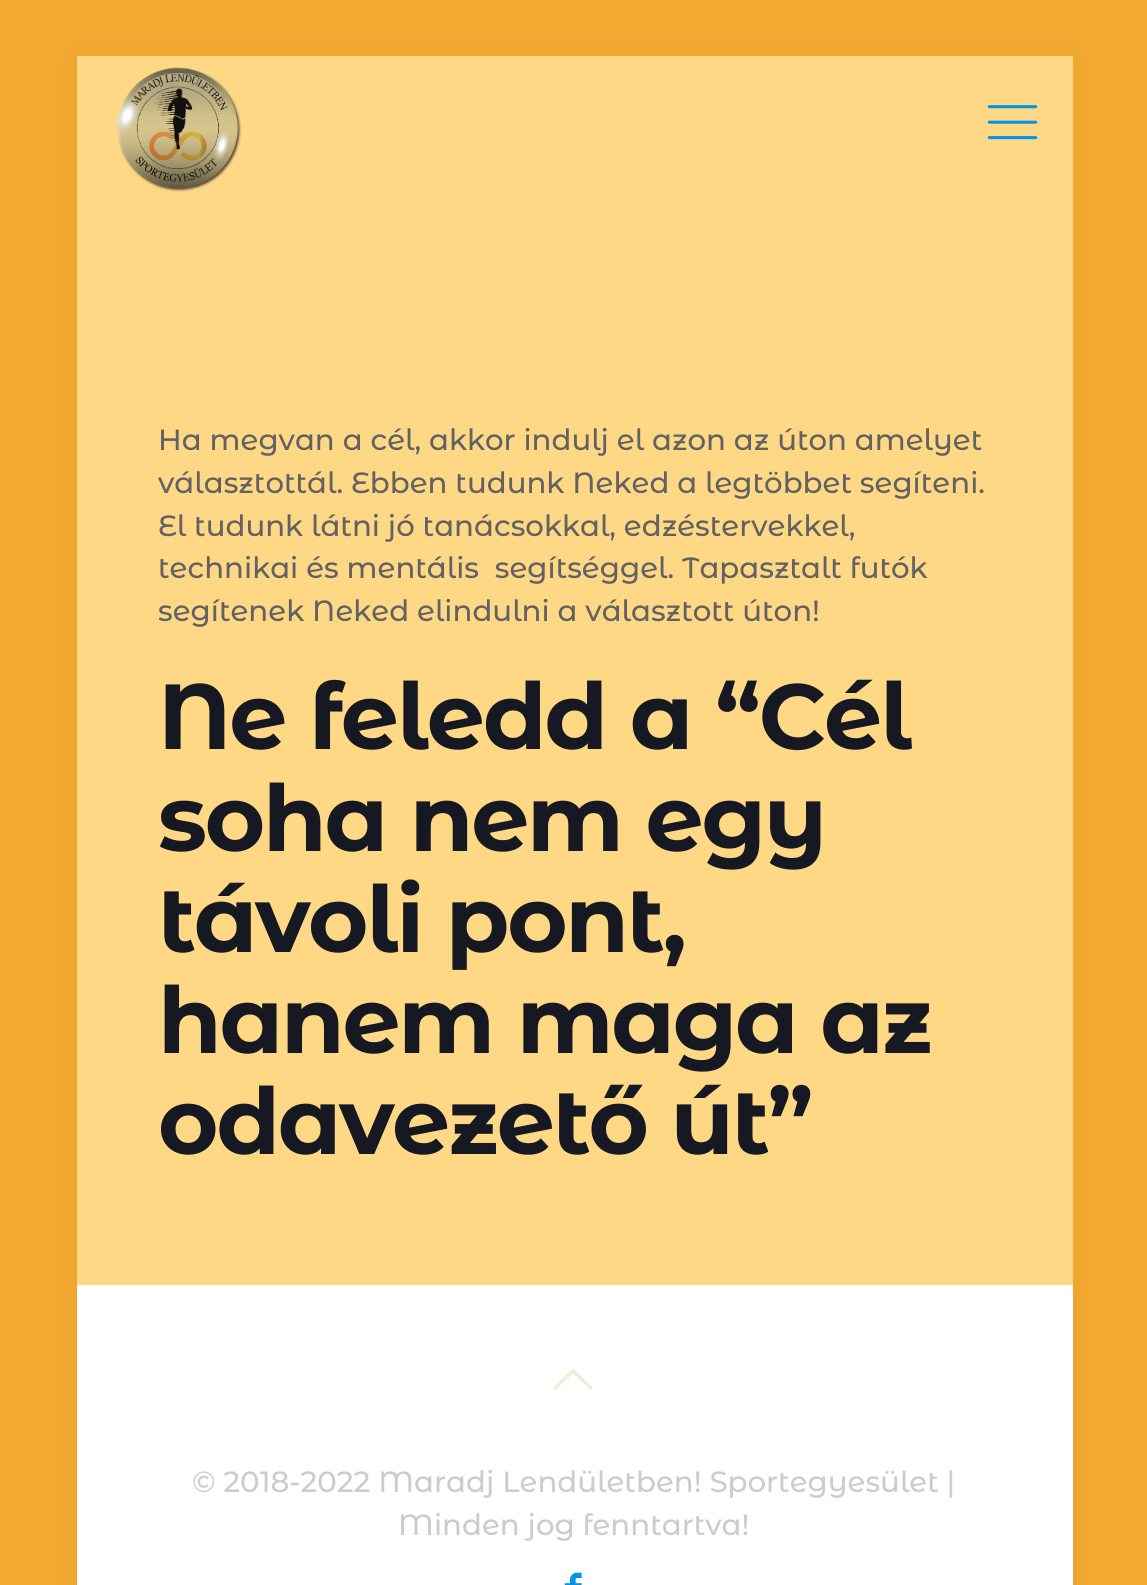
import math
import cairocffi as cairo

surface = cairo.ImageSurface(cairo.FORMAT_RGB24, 1147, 1585)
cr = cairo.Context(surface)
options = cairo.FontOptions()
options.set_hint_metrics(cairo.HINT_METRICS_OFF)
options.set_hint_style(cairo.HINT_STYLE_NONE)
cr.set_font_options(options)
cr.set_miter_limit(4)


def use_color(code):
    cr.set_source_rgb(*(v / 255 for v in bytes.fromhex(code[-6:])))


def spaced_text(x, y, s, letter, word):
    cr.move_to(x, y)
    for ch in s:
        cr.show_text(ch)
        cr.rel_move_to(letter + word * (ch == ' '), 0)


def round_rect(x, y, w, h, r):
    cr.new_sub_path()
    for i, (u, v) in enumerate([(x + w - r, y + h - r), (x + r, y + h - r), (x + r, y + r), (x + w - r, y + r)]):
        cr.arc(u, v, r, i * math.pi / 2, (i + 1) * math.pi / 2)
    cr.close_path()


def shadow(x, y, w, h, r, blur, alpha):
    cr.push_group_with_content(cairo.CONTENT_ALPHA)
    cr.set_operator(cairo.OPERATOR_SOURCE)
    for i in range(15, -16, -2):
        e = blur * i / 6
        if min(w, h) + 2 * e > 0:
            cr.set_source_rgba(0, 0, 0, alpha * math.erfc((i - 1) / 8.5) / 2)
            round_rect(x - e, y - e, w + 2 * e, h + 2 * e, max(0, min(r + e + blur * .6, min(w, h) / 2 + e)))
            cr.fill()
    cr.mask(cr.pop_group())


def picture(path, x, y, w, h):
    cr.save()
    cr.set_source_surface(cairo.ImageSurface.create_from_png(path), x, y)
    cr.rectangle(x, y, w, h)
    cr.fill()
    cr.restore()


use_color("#f5aa31")
cr.paint()
use_color("#000000")
shadow(77, 56, 996, 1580, 0, 17, 0.06)
use_color("#ffd886")
cr.rectangle(77, 56, 996, 1229)
cr.fill()
picture("img1.png", 114, 67, 128, 125)
picture("img2.png", 987, 105, 51, 35)
cr.select_font_face("Montserrat Alternates Medium")
cr.set_font_size(29.25)
use_color("#626262")
cr.move_to(158, 450)
cr.show_text("Ha megvan a cél, akkor indulj el azon az úton amelyet")
cr.move_to(158, 493)
cr.show_text("választottál. Ebben tudunk Neked a legtöbbet segíteni.")
cr.move_to(158, 536)
cr.show_text("El tudunk látni jó tanácsokkal, edzéstervekkel,")
cr.move_to(158, 578)
cr.show_text("technikai és mentális  segítséggel. Tapasztalt futók")
cr.move_to(158, 621)
cr.show_text("segítenek Neked elindulni a választott úton!")
cr.select_font_face("Montserrat Alternates", cairo.FONT_SLANT_NORMAL, cairo.FONT_WEIGHT_BOLD)
cr.set_font_size(92.25)
use_color("#161922")
spaced_text(158, 749, "Ne feledd a “Cél", -2.25, 0)
spaced_text(158, 851, "soha nem egy", -2.25, 0)
spaced_text(158, 952, "távoli pont,", -2.25, 0)
spaced_text(158, 1053, "hanem maga az", -2.25, 0)
spaced_text(158, 1154, "odavezető út”", -2.25, 0)
use_color("#ffffff")
cr.rectangle(77, 1285, 996, 300)
cr.fill()
use_color("#f4ead6")
cr.new_path()
cr.move_to(589.5, 1389)
cr.line_to(573, 1373)
cr.line_to(559, 1386.5)
cr.curve_to(558, 1387.5, 555, 1391.5, 553.5, 1388.5)
cr.line_to(554, 1387)
cr.line_to(572.5, 1369)
cr.curve_to(574, 1368.5, 579, 1374.5, 580, 1375)
cr.line_to(589, 1384)
cr.curve_to(589, 1384, 595, 1388.5, 591, 1389.5)
cr.close_path()
cr.fill()
cr.select_font_face("Montserrat Alternates Medium")
cr.set_font_size(29.25)
use_color("#cccccc")
cr.move_to(192, 1492)
cr.show_text("© 2018-2022 Maradj Lendületben! Sportegyesület |")
cr.move_to(398, 1535)
cr.show_text("Minden jog fenntartva!")
picture("img3.png", 564, 1572, 18, 13)
surface.write_to_png("result.png")
